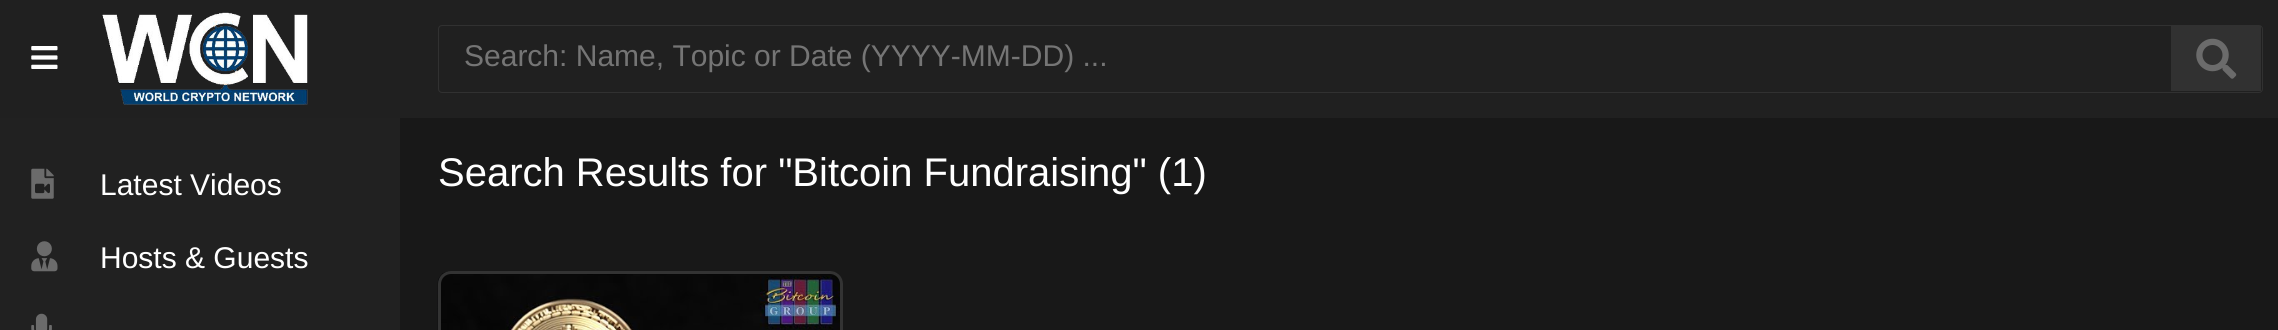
import math
import cairocffi as cairo

surface = cairo.ImageSurface(cairo.FORMAT_RGB24, 2278, 330)
cr = cairo.Context(surface)
options = cairo.FontOptions()
options.set_hint_metrics(cairo.HINT_METRICS_OFF)
options.set_hint_style(cairo.HINT_STYLE_NONE)
cr.set_font_options(options)
cr.set_miter_limit(4)


def use_color(code):
    cr.set_source_rgb(*(v / 255 for v in bytes.fromhex(code[-6:])))


def round_rect(x, y, w, h, r):
    cr.new_sub_path()
    for i, (u, v) in enumerate([(x + w - r, y + h - r), (x + r, y + h - r), (x + r, y + r), (x + w - r, y + r)]):
        cr.arc(u, v, r, i * math.pi / 2, (i + 1) * math.pi / 2)
    cr.close_path()


def picture(path, x, y, w, h):
    cr.save()
    cr.set_source_surface(cairo.ImageSurface.create_from_png(path), x, y)
    cr.rectangle(x, y, w, h)
    cr.fill()
    cr.restore()


use_color("#181818")
cr.paint()
use_color("#202020")
cr.rectangle(0, 0, 2278, 118)
cr.fill()
picture("img1.png", 31, 46, 27, 23)
picture("img2.png", 102, 12, 206, 93)
round_rect(438.5, 25.5, 1824, 67, 3.5)
use_color("#313131")
cr.set_line_width(1)
cr.stroke()
cr.select_font_face("Liberation Sans")
cr.set_font_size(30)
use_color("#757575")
cr.move_to(464, 66)
cr.show_text("Search: Name, Topic or Date (YYYY-MM-DD) ...")
use_color("#313131")
cr.rectangle(2171, 26, 90, 65)
cr.fill()
picture("img3.png", 2196, 38, 41, 41)
use_color("#212121")
cr.rectangle(0, 118, 400, 212)
cr.fill()
picture("img4.png", 31, 168, 23, 31)
use_color("#ffffff")
cr.move_to(100, 195)
cr.show_text("Latest Videos")
picture("img5.png", 31, 241, 27, 31)
cr.move_to(100, 268)
cr.show_text("Hosts & Guests")
picture("img6.png", 31, 313, 21, 17)
cr.set_font_size(40)
cr.move_to(438, 186)
cr.show_text("Search Results for \"Bitcoin Fundraising\" (1)")
picture("img7.png", 437, 271, 406, 59)
round_rect(439.5, 272.5, 402, 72, 11.5)
use_color("#333333")
cr.set_line_width(3)
cr.stroke()
surface.write_to_png("result.png")
